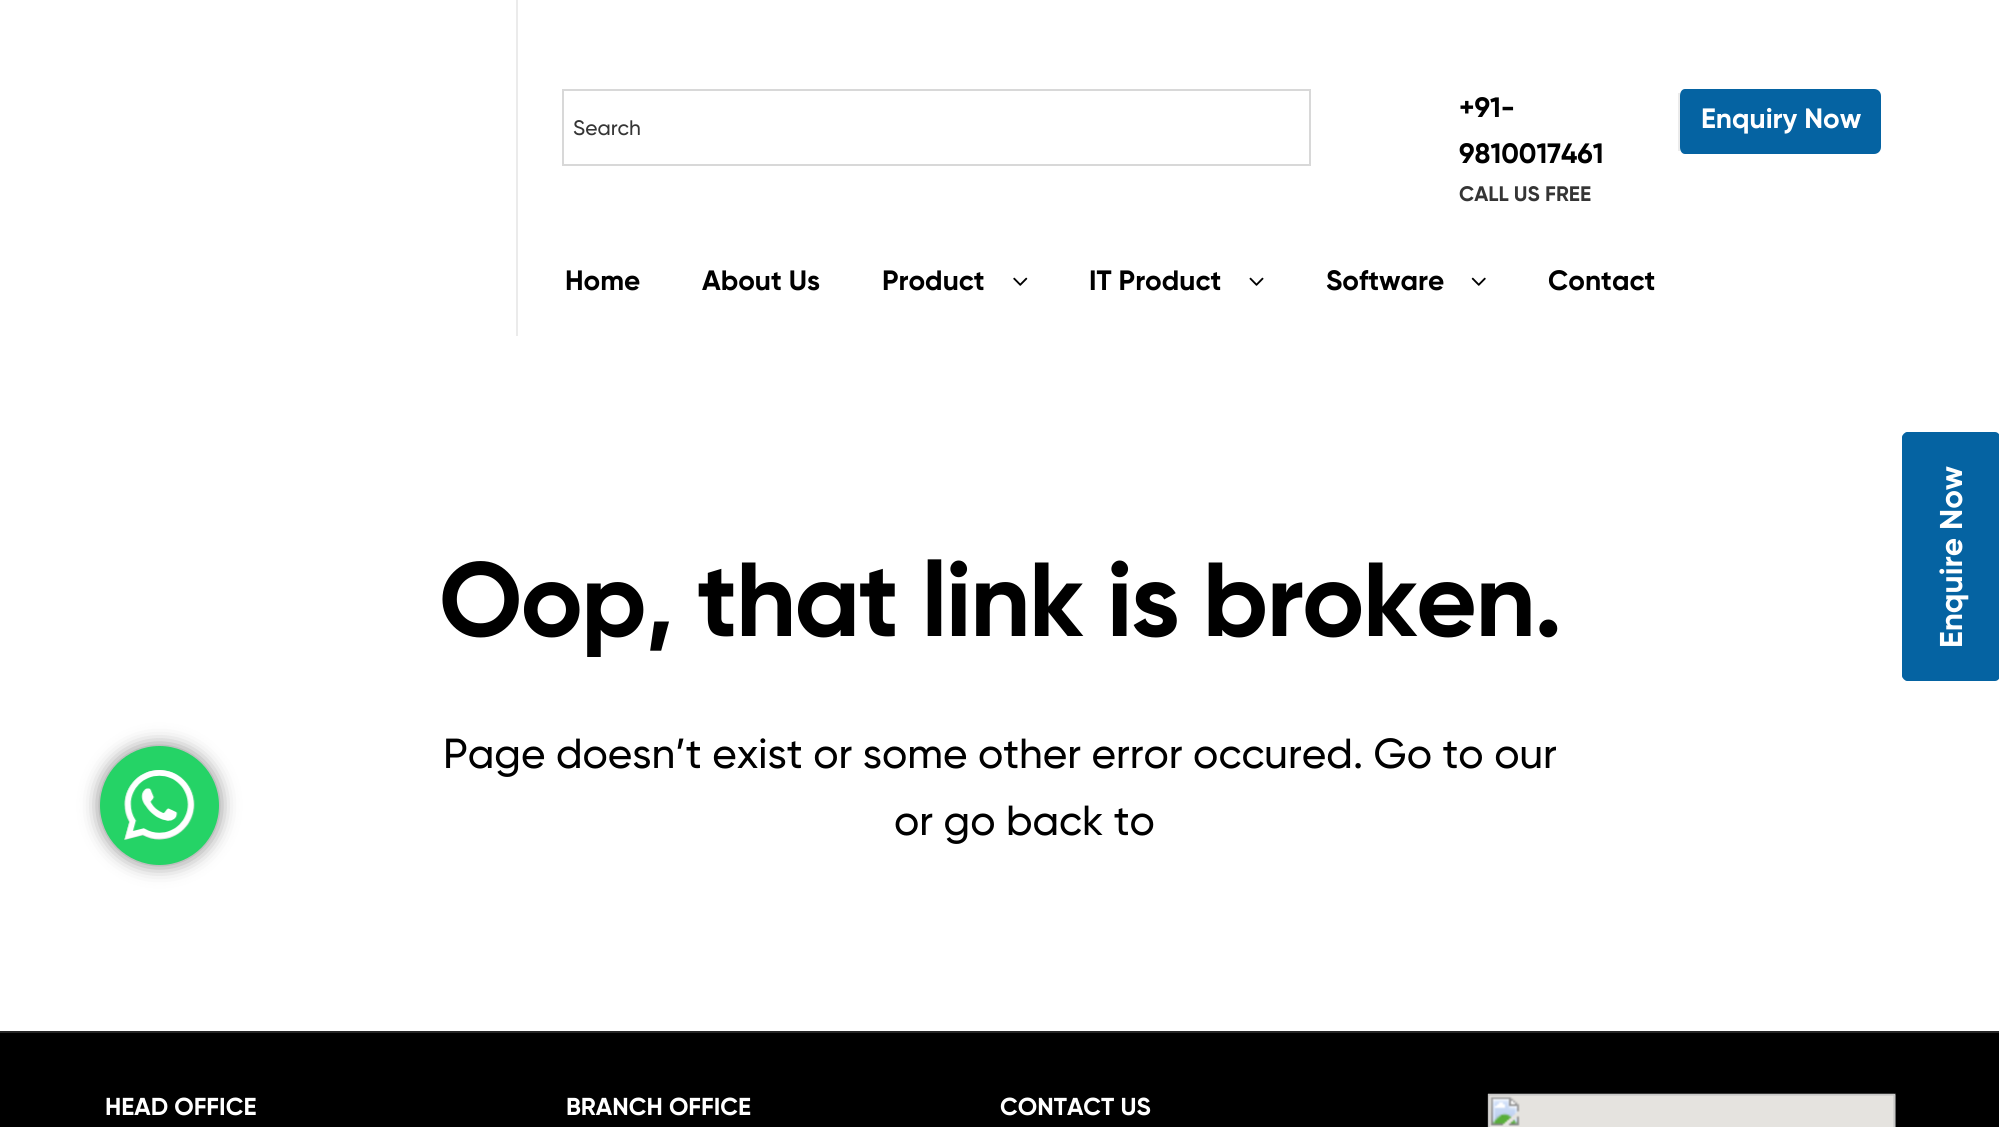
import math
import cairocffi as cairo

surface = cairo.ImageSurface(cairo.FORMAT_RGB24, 1999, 1127)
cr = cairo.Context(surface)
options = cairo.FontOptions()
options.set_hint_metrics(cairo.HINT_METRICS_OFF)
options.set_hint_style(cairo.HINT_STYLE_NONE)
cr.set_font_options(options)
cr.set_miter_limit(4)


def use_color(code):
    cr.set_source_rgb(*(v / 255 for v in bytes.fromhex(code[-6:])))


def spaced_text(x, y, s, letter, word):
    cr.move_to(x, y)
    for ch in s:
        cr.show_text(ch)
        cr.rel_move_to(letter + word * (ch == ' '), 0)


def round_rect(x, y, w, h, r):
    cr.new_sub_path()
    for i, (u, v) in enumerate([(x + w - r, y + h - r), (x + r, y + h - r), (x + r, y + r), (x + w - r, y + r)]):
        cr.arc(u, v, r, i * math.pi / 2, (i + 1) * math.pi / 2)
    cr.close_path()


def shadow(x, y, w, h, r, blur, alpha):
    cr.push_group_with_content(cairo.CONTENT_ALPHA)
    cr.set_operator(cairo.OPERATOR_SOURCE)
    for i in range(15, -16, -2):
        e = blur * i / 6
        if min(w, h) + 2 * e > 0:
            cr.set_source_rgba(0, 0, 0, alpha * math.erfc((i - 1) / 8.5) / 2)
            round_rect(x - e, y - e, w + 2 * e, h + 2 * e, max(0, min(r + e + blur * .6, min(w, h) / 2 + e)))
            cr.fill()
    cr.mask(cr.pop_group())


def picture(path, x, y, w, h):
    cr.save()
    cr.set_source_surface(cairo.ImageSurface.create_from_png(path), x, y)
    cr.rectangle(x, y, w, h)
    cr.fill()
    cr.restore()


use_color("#ffffff")
cr.paint()
use_color("#ebebeb")
cr.rectangle(516, 0, 2, 336)
cr.fill()
cr.rectangle(563, 90, 747, 75)
use_color("#d8d8d8")
cr.stroke()
cr.select_font_face("Gilroy Medium")
cr.set_font_size(21)
use_color("#353535")
cr.move_to(573, 135)
cr.show_text("Search")
cr.select_font_face("Gilroy", cairo.FONT_SLANT_NORMAL, cairo.FONT_WEIGHT_BOLD)
cr.set_font_size(28)
use_color("#000000")
cr.move_to(1459, 117)
cr.show_text("+91-")
cr.move_to(1459, 163)
cr.show_text("9810017461")
cr.set_font_size(21)
use_color("#353535")
cr.move_to(1459, 201)
cr.show_text("CALL US FREE")
use_color("#0563a2")
cr.new_path()
cr.move_to(1685, 89)
cr.line_to(1874, 89)
cr.curve_to(1878, 89, 1881, 92, 1881, 96)
cr.line_to(1881, 147)
cr.curve_to(1881, 151, 1878, 154, 1874, 154)
cr.line_to(1685, 154)
cr.curve_to(1682, 154, 1680, 151, 1680, 147)
cr.line_to(1680, 96)
cr.curve_to(1680, 92, 1682, 89, 1685, 89)
cr.close_path()
cr.fill()
use_color("#ebebeb")
cr.rectangle(1678, 93, 2, 58)
cr.fill()
cr.set_font_size(28)
use_color("#ffffff")
cr.move_to(1701, 128)
cr.show_text("Enquiry Now")
use_color("#000000")
cr.move_to(565, 290)
cr.show_text("Home")
cr.move_to(702, 290)
cr.show_text("About Us")
cr.move_to(882, 290)
cr.show_text("Product")
picture("img1.png", 1013, 277, 15, 9)
cr.move_to(1089, 290)
cr.show_text("IT Product")
picture("img2.png", 1249, 277, 15, 9)
cr.move_to(1326, 290)
cr.show_text("Software")
picture("img3.png", 1471, 277, 15, 9)
cr.move_to(1548, 290)
cr.show_text("Contact")
cr.rectangle(0, 1033, 1999, 94)
cr.fill()
use_color("#262626")
cr.rectangle(0, 1031, 1999, 2)
cr.fill()
use_color("#0563a2")
cr.new_path()
cr.move_to(1902, 676)
cr.line_to(1902, 437)
cr.curve_to(1902, 435, 1905, 432, 1907, 432)
cr.line_to(1995, 432)
cr.curve_to(1998, 432, 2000, 435, 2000, 437)
cr.line_to(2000, 676)
cr.curve_to(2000, 678, 1998, 681, 1995, 681)
cr.line_to(1907, 681)
cr.curve_to(1905, 681, 1902, 678, 1902, 676)
cr.close_path()
cr.fill()
cr.set_font_size(31.5)
use_color("#ffffff")
cr.save()
cr.translate(1962, 648)
cr.rotate(-90 * math.pi / 180)
cr.move_to(0, 0)
cr.show_text("Enquire Now")
cr.restore()
picture("img4.png", 1487, 1093, 409, 34)
cr.set_font_size(24.5)
cr.move_to(105, 1115)
cr.show_text("HEAD OFFICE")
cr.move_to(566, 1115)
cr.show_text("BRANCH OFFICE")
cr.move_to(1000, 1115)
cr.show_text("CONTACT US")
cr.set_font_size(105)
use_color("#000000")
spaced_text(439, 636, "Oop, that link is broken.", -1.75, 0)
cr.select_font_face("Gilroy Medium")
cr.set_font_size(42)
cr.move_to(443, 768)
cr.show_text("Page doesn’t exist or some other error occured. Go to our")
cr.move_to(894, 835)
cr.show_text("or go back to")
use_color("#000000")
shadow(100, 746, 119, 119, 59.5, 9.5, 0.5)
use_color("#25d366")
cr.arc(159.5, 805.5, 59.5, 0, 2 * math.pi)
cr.fill()
picture("img5.png", 124, 770, 71, 70)
surface.write_to_png("result.png")
